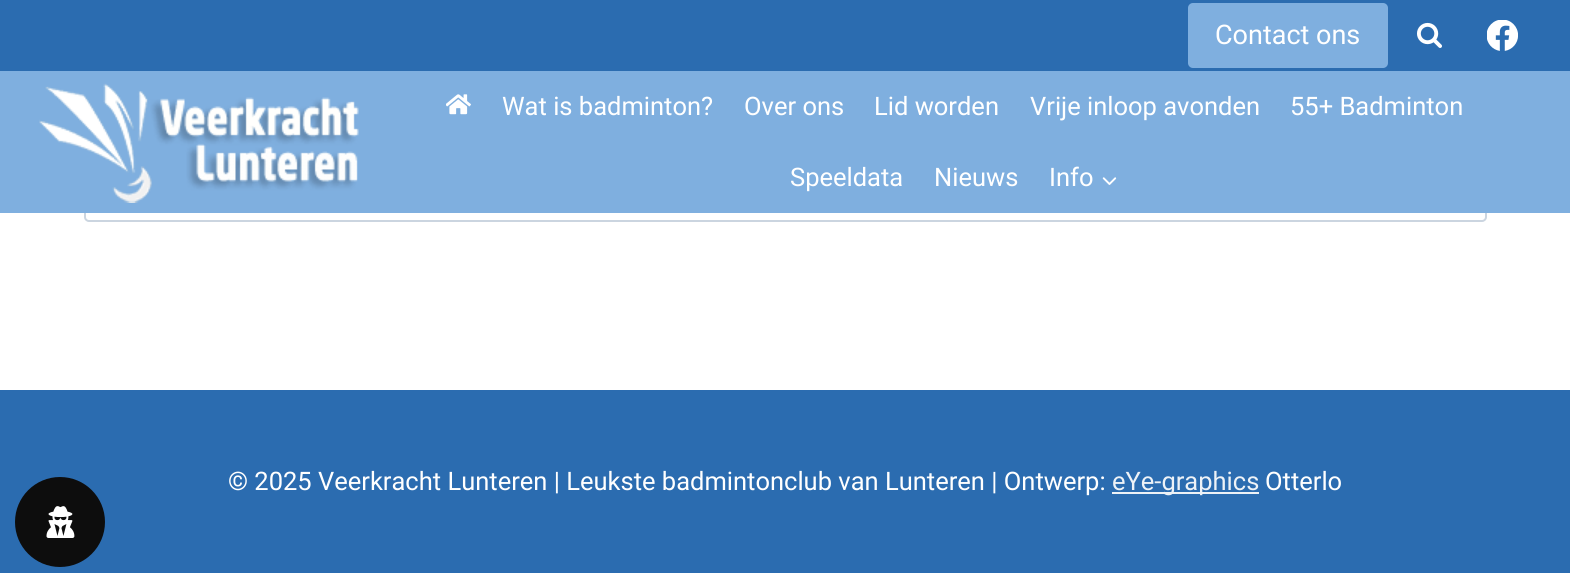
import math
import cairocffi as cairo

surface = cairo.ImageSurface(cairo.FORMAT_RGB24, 1570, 573)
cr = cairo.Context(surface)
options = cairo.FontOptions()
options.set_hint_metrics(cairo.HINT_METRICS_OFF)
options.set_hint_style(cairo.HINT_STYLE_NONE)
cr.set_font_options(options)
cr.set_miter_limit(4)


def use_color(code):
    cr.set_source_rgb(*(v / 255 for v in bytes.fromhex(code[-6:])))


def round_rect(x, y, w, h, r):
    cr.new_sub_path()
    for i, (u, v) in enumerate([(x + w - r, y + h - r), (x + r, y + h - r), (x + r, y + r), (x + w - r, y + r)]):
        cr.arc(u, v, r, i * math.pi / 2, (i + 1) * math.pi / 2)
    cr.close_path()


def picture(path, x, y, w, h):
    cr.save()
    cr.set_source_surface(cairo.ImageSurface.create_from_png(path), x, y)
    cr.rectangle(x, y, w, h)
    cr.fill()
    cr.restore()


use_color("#ffffff")
cr.paint()
use_color("#2b6cb0")
cr.rectangle(0, 0, 1570, 71)
cr.fill()
use_color("#7fafdf")
round_rect(1188, 3, 200, 65, 5)
cr.fill()
cr.select_font_face("Roboto")
cr.set_font_size(27)
use_color("#ffffff")
cr.move_to(1215, 44)
cr.show_text("Contact ons")
picture("img1.png", 1417, 22, 25, 26)
picture("img2.png", 1487, 20, 31, 31)
round_rect(85, 160, 1401, 61, 4)
use_color("#cbd5e0")
cr.stroke()
use_color("#7fafdf")
cr.rectangle(0, 71, 1570, 142)
cr.fill()
picture("img3.png", 39, 83, 320, 120)
picture("img4.png", 446, 94, 25, 21)
cr.set_font_size(25.5)
use_color("#ffffff")
cr.move_to(502, 115)
cr.show_text("Wat is badminton?")
cr.move_to(744, 115)
cr.show_text("Over ons")
cr.move_to(874, 115)
cr.show_text("Lid worden")
cr.move_to(1030, 115)
cr.show_text("Vrije inloop avonden")
cr.move_to(1290, 115)
cr.show_text("55+ Badminton")
cr.move_to(790, 186)
cr.show_text("Speeldata")
cr.move_to(934, 186)
cr.show_text("Nieuws")
cr.move_to(1049, 186)
cr.show_text("Info")
picture("img5.png", 1102, 177, 15, 8)
use_color("#2b6cb0")
cr.rectangle(0, 390, 1570, 183)
cr.fill()
use_color("#ffffff")
cr.move_to(228, 490)
cr.show_text("© 2025 Veerkracht Lunteren | Leukste badmintonclub van Lunteren | Ontwerp:")
use_color("#edf2f7")
cr.rectangle(1112, 492, 147, 2)
cr.fill()
cr.move_to(1112, 490)
cr.show_text("eYe-graphics")
use_color("#ffffff")
cr.move_to(1265, 490)
cr.show_text("Otterlo")
use_color("#0d0d0d")
cr.new_path()
cr.arc(60, 522, 45, 0, 2 * math.pi)
cr.fill()
picture("img6.png", 46, 506, 29, 32)
surface.write_to_png("result.png")
